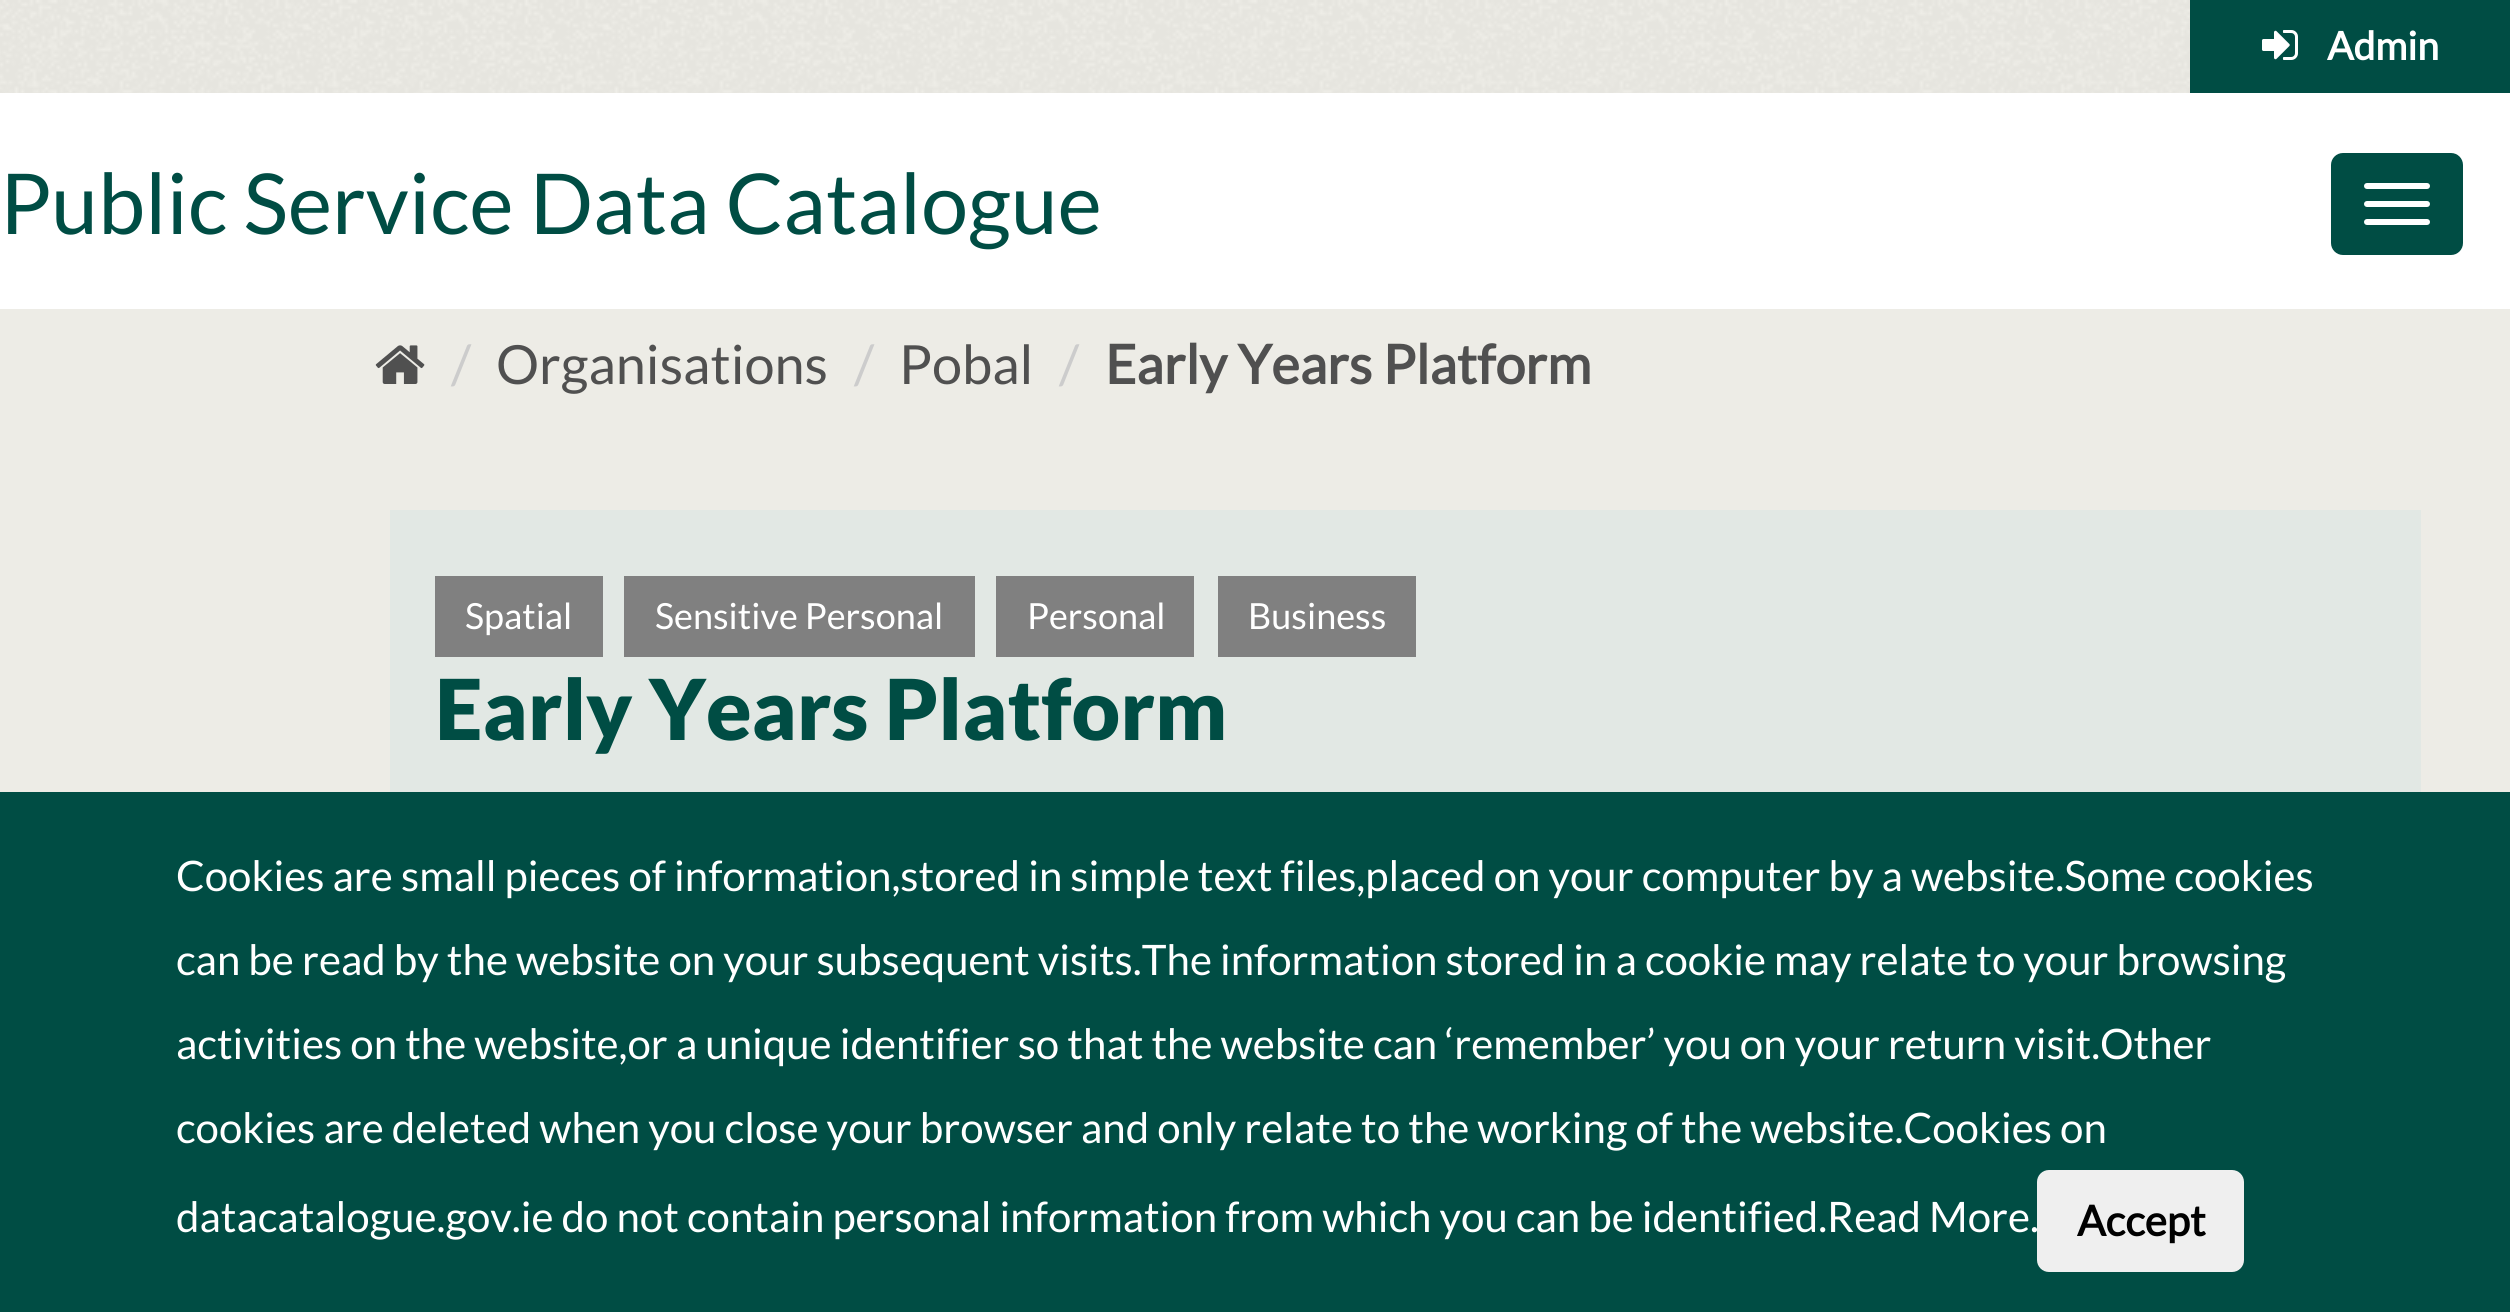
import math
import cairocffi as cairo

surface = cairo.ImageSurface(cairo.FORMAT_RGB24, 2510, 1312)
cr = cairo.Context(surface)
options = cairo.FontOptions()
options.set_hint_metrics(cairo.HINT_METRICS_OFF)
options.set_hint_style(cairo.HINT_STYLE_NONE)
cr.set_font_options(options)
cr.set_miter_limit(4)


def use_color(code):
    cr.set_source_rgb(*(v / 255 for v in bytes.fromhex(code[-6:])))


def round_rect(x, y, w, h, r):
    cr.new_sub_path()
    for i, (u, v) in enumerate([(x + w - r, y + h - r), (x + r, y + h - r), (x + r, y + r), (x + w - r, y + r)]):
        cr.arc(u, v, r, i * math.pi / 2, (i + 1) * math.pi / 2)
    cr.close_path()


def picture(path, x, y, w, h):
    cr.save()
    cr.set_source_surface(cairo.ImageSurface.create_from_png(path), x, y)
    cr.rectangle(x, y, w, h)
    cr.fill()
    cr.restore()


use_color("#edece6")
cr.paint()
picture("img1.png", 0, 0, 2190, 93)
use_color("#004d44")
cr.rectangle(2190, 0, 320, 93)
cr.fill()
picture("img2.png", 2262, 30, 36, 30)
cr.select_font_face("Lato", cairo.FONT_SLANT_NORMAL, cairo.FONT_WEIGHT_BOLD)
cr.set_font_size(39)
use_color("#ffffff")
cr.move_to(2327, 60)
cr.show_text("Admin")
cr.rectangle(0, 93, 2510, 216)
cr.fill()
cr.select_font_face("Lato")
cr.set_font_size(84)
use_color("#004d44")
cr.move_to(0, 234)
cr.show_text("Public Service Data Catalogue")
round_rect(2331, 153, 132, 102, 12)
cr.fill()
use_color("#ffffff")
round_rect(2364, 183, 66, 6, 3)
cr.fill()
round_rect(2364, 201, 66, 6, 3)
cr.fill()
round_rect(2364, 219, 66, 6, 3)
cr.fill()
picture("img3.png", 375, 345, 50, 39)
cr.set_font_size(54)
use_color("#cccccc")
cr.move_to(451, 384)
cr.show_text("/")
use_color("#505050")
cr.move_to(496, 384)
cr.show_text("Organisations")
use_color("#cccccc")
cr.move_to(854, 384)
cr.show_text("/")
use_color("#505050")
cr.move_to(899, 384)
cr.show_text("Pobal")
use_color("#cccccc")
cr.move_to(1059, 384)
cr.show_text("/")
cr.select_font_face("Lato", cairo.FONT_SLANT_NORMAL, cairo.FONT_WEIGHT_BOLD)
use_color("#505050")
cr.move_to(1105, 384)
cr.show_text("Early Years Platform")
use_color("#e2e8e4")
cr.rectangle(390, 510, 2031, 282)
cr.fill()
use_color("#808080")
cr.rectangle(435, 576, 168, 81)
cr.fill()
cr.select_font_face("Lato")
cr.set_font_size(36)
use_color("#ffffff")
cr.move_to(465, 629)
cr.show_text("Spatial")
use_color("#808080")
cr.rectangle(624, 576, 351, 81)
cr.fill()
use_color("#ffffff")
cr.move_to(655, 629)
cr.show_text("Sensitive Personal")
use_color("#808080")
cr.rectangle(996, 576, 198, 81)
cr.fill()
use_color("#ffffff")
cr.move_to(1027, 629)
cr.show_text("Personal")
use_color("#808080")
cr.rectangle(1218, 576, 198, 81)
cr.fill()
use_color("#ffffff")
cr.move_to(1248, 629)
cr.show_text("Business")
cr.select_font_face("Lato Black")
cr.set_font_size(84)
use_color("#004d44")
cr.move_to(435, 740)
cr.show_text("Early Years Platform")
cr.rectangle(0, 792, 2510, 520)
cr.fill()
cr.select_font_face("Lato")
cr.set_font_size(42)
use_color("#ffffff")
cr.move_to(176, 891)
cr.show_text("Cookies are small pieces of information,stored in simple text files,placed on your computer by a website.Some cookies")
cr.move_to(176, 975)
cr.show_text("can be read by the website on your subsequent visits.The information stored in a cookie may relate to your browsing")
cr.move_to(176, 1059)
cr.show_text("activities on the website,or a unique identifier so that the website can ‘remember’ you on your return visit.Other")
cr.move_to(176, 1143)
cr.show_text("cookies are deleted when you close your browser and only relate to the working of the website.Cookies on")
cr.move_to(176, 1232)
cr.show_text("datacatalogue.gov.ie do not contain personal information from which you can be identified.Read More.")
use_color("#efefef")
round_rect(2037, 1170, 207, 102, 12)
cr.fill()
cr.select_font_face("Lato", cairo.FONT_SLANT_NORMAL, cairo.FONT_WEIGHT_BOLD)
use_color("#000000")
cr.move_to(2077, 1236)
cr.show_text("Accept")
surface.write_to_png("result.png")
